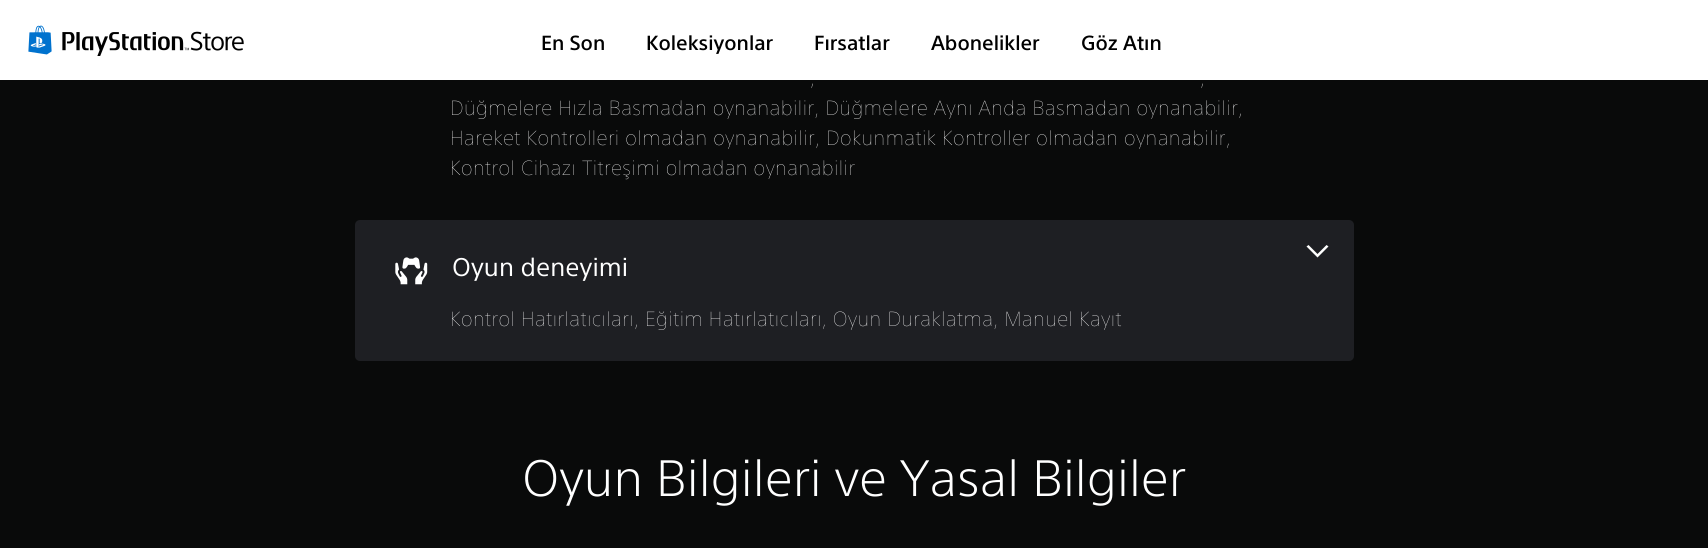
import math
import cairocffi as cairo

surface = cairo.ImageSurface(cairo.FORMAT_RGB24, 1708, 548)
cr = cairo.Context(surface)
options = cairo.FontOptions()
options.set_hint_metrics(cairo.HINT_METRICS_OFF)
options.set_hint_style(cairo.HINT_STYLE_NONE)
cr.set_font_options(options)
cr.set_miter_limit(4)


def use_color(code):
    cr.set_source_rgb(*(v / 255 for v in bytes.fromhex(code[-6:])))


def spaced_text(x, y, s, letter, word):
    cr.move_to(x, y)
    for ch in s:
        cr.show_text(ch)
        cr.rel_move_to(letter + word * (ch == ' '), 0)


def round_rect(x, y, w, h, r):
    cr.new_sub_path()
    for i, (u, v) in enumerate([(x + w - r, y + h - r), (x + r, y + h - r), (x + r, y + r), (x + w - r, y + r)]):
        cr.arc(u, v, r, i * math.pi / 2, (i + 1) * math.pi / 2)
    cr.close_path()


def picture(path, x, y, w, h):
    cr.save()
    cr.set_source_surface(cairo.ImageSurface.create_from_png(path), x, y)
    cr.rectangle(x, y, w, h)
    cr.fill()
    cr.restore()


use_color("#090a0a")
cr.paint()
use_color("#ffffff")
cr.rectangle(0, 0, 1708, 80)
cr.fill()
picture("img1.png", 28, 25, 24, 30)
picture("img2.png", 62, 31, 182, 25)
cr.select_font_face("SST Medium")
cr.set_font_size(20)
use_color("#000000")
cr.move_to(541, 50)
cr.show_text("En Son")
cr.move_to(646, 50)
cr.show_text("Koleksiyonlar")
cr.move_to(814, 50)
cr.show_text("Fırsatlar")
cr.move_to(931, 50)
cr.show_text("Abonelikler")
cr.move_to(1081, 50)
cr.show_text("Göz Atın")
cr.select_font_face("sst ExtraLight")
use_color("#ffffff")
spaced_text(810, 85, ",", 0.5, 0)
spaced_text(1200, 85, ",", 0.5, 0)
spaced_text(450, 115, "Düğmelere Hızla Basmadan oynanabilir, Düğmelere Aynı Anda Basmadan oynanabilir,", 0.5, 0)
spaced_text(450, 145, "Hareket Kontrolleri olmadan oynanabilir, Dokunmatik Kontroller olmadan oynanabilir,", 0.5, 0)
spaced_text(450, 175, "Kontrol Cihazı Titreşimi olmadan oynanabilir", 0.5, 0)
use_color("#1e1f23")
round_rect(355, 220, 999, 141, 5)
cr.fill()
use_color("#ffffff")
cr.set_fill_rule(cairo.FILL_RULE_EVEN_ODD)
cr.new_path()
cr.move_to(1306.5, 246.5)
cr.line_to(1308.5, 245)
cr.line_to(1317.5, 254)
cr.line_to(1326.5, 245)
cr.line_to(1328.5, 246.5)
cr.line_to(1317.5, 257.5)
cr.close_path()
cr.fill()
picture("img3.png", 395, 257, 33, 28)
cr.select_font_face("sst")
cr.set_font_size(25)
spaced_text(452, 276, "Oyun deneyimi", 0.1, 0)
cr.select_font_face("sst ExtraLight")
cr.set_font_size(20)
spaced_text(450, 326, "Kontrol Hatırlatıcıları, Eğitim Hatırlatıcıları, Oyun Duraklatma, Manuel Kayıt", 0.5, 0)
cr.select_font_face("sst Light")
cr.set_font_size(50)
spaced_text(522, 496, "Oyun Bilgileri ve Yasal Bilgiler", 0.1, 0)
surface.write_to_png("result.png")
